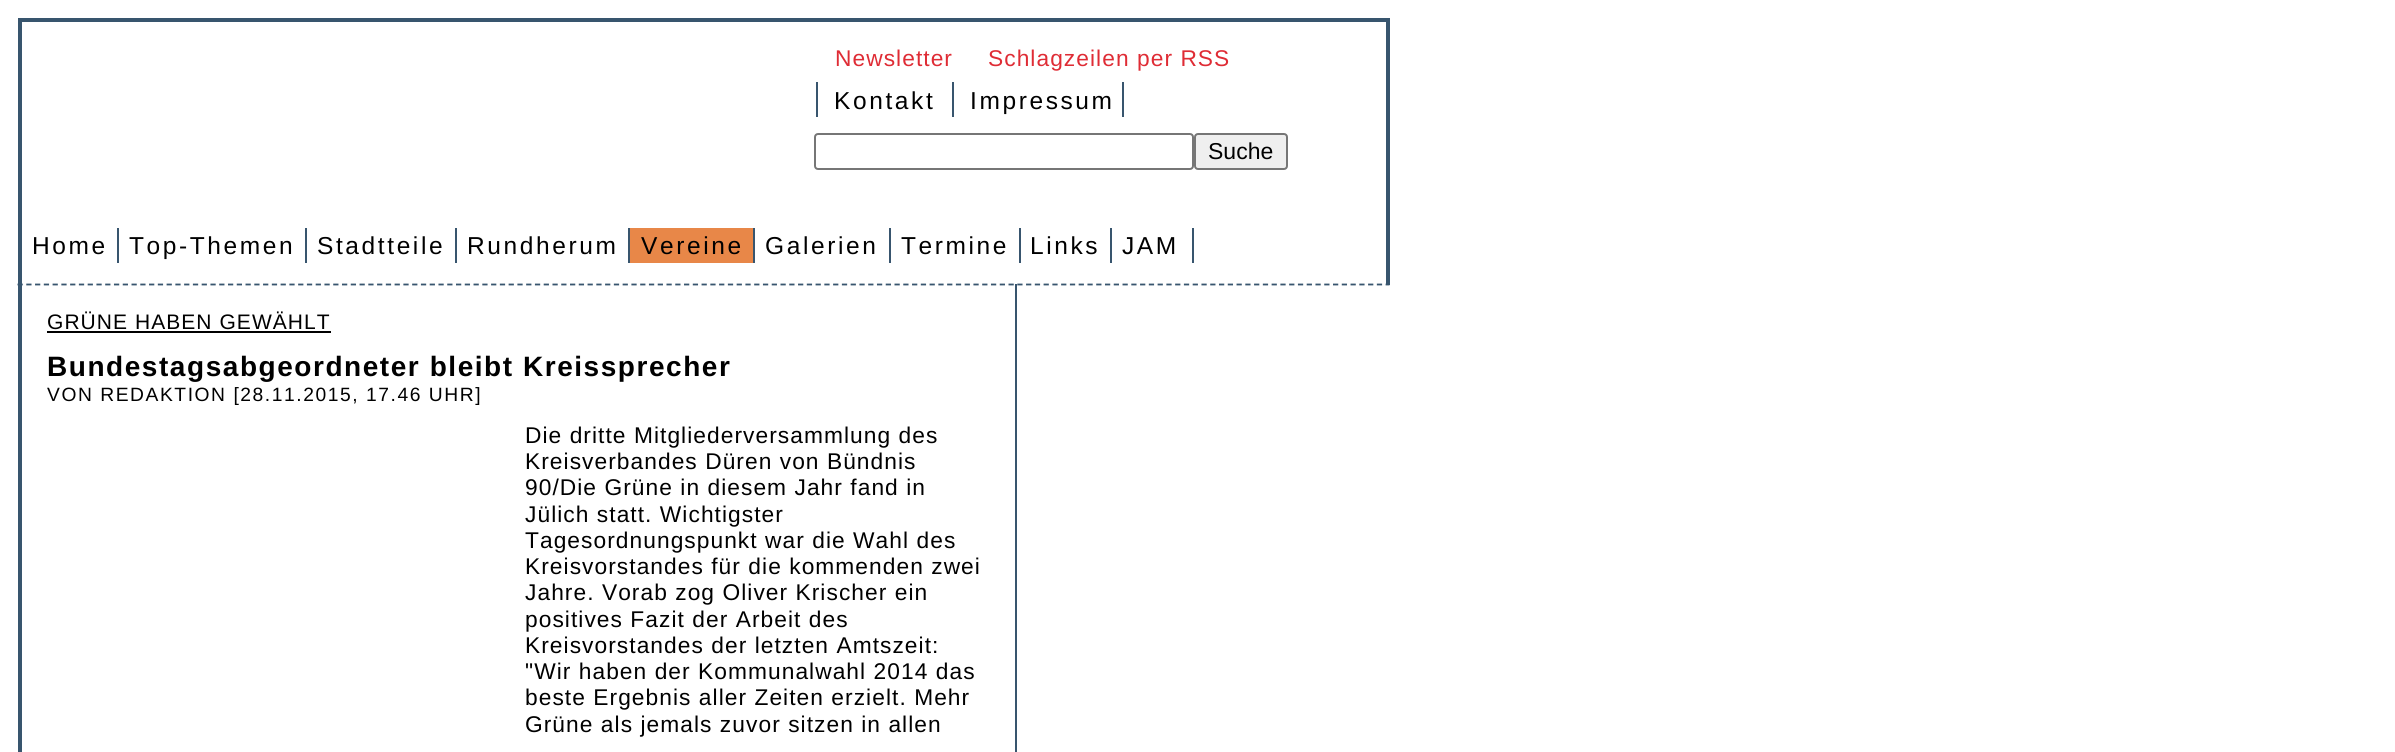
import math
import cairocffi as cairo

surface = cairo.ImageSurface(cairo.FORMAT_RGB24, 2395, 752)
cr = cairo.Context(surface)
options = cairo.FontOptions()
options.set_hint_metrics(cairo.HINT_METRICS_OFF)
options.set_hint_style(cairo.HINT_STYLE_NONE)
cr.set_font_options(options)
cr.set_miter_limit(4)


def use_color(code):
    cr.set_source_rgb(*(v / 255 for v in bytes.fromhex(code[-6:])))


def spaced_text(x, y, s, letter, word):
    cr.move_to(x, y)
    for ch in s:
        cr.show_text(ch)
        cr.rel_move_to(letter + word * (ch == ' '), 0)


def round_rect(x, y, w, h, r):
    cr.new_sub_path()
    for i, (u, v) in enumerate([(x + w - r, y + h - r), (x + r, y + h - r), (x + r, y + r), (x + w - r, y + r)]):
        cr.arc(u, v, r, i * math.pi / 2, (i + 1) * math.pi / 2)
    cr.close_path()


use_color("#ffffff")
cr.paint()
use_color("#38556e")
cr.rectangle(18, 18, 1372, 4)
cr.fill()
cr.rectangle(1386, 18, 4, 267)
cr.fill()
cr.new_path()
cr.move_to(17.5, 284.5)
cr.line_to(1389.5, 284.5)
cr.set_line_width(1.8)
cr.set_dash([5.25, 3.52])
cr.stroke()
cr.rectangle(18, 18, 4, 734)
cr.fill()
cr.select_font_face("Liberation Sans")
cr.set_font_size(22.75)
use_color("#df2c35")
spaced_text(835, 66, "Newsletter", 1.05, 0)
spaced_text(988, 66, "Schlagzeilen per RSS", 1.05, 0)
cr.set_font_size(24.5)
use_color("#000000")
spaced_text(834, 109, "Kontakt", 2.6, 0)
use_color("#38556e")
cr.rectangle(816, 82, 2, 35)
cr.fill()
cr.rectangle(952, 82, 2, 35)
cr.fill()
use_color("#000000")
spaced_text(970, 109, "Impressum", 2.6, 0)
use_color("#38556e")
cr.rectangle(1122, 82, 2, 35)
cr.fill()
round_rect(815, 134, 378, 35, 3)
use_color("#767676")
cr.set_line_width(2)
cr.set_dash([])
cr.stroke()
use_color("#efefef")
round_rect(1195, 134, 92, 35, 3)
cr.fill_preserve()
use_color("#767676")
cr.stroke()
cr.set_font_size(23)
use_color("#000000")
cr.move_to(1208, 159)
cr.show_text("Suche")
cr.set_font_size(24.5)
spaced_text(32, 254, "Home", 2.6, 0)
use_color("#38556e")
cr.rectangle(117, 228, 2, 35)
cr.fill()
use_color("#000000")
spaced_text(129, 254, "Top-Themen", 2.6, 0)
use_color("#38556e")
cr.rectangle(305, 228, 2, 35)
cr.fill()
use_color("#000000")
spaced_text(317, 254, "Stadtteile", 2.6, 0)
use_color("#38556e")
cr.rectangle(455, 228, 2, 35)
cr.fill()
use_color("#000000")
spaced_text(467, 254, "Rundherum", 2.6, 0)
use_color("#38556e")
cr.rectangle(628, 228, 2, 35)
cr.fill()
use_color("#e88748")
cr.rectangle(630, 228, 123, 35)
cr.fill()
use_color("#000000")
spaced_text(641, 254, "Vereine", 2.6, 0)
use_color("#38556e")
cr.rectangle(753, 228, 2, 35)
cr.fill()
use_color("#000000")
spaced_text(765, 254, "Galerien", 2.6, 0)
use_color("#38556e")
cr.rectangle(889, 228, 2, 35)
cr.fill()
use_color("#000000")
spaced_text(901, 254, "Termine", 2.6, 0)
use_color("#38556e")
cr.rectangle(1019, 228, 2, 35)
cr.fill()
use_color("#000000")
spaced_text(1030, 254, "Links", 2.6, 0)
use_color("#38556e")
cr.rectangle(1110, 228, 2, 35)
cr.fill()
use_color("#000000")
spaced_text(1122, 254, "JAM", 2.6, 0)
use_color("#38556e")
cr.rectangle(1192, 228, 2, 35)
cr.fill()
cr.rectangle(1015, 284, 2, 468)
cr.fill()
cr.set_font_size(21)
use_color("#000000")
spaced_text(47, 329, "GRÜNE HABEN GEWÄHLT", 1.05, 0)
cr.rectangle(47, 331, 284, 2)
cr.fill()
cr.select_font_face("Liberation Sans", cairo.FONT_SLANT_NORMAL, cairo.FONT_WEIGHT_BOLD)
cr.set_font_size(28)
spaced_text(47, 376, "Bundestagsabgeordneter bleibt Kreissprecher", 1.55, 0)
cr.select_font_face("Liberation Sans")
cr.set_font_size(19.25)
spaced_text(47, 401, "VON REDAKTION [28.11.2015, 17.46 UHR]", 1.55, 0)
cr.set_font_size(22.75)
spaced_text(525, 443, "Die dritte Mitgliederversammlung des", 1.05, 0)
spaced_text(525, 469, "Kreisverbandes Düren von Bündnis", 1.05, 0)
spaced_text(525, 495, "90/Die Grüne in diesem Jahr fand in", 1.05, 0)
spaced_text(525, 522, "Jülich statt. Wichtigster", 1.05, 0)
spaced_text(525, 548, "Tagesordnungspunkt war die Wahl des", 1.05, 0)
spaced_text(525, 574, "Kreisvorstandes für die kommenden zwei", 1.05, 0)
spaced_text(525, 600, "Jahre. Vorab zog Oliver Krischer ein", 1.05, 0)
spaced_text(525, 627, "positives Fazit der Arbeit des", 1.05, 0)
spaced_text(525, 653, "Kreisvorstandes der letzten Amtszeit:", 1.05, 0)
spaced_text(525, 679, "\"Wir haben der Kommunalwahl 2014 das", 1.05, 0)
spaced_text(525, 705, "beste Ergebnis aller Zeiten erzielt. Mehr", 1.05, 0)
spaced_text(525, 732, "Grüne als jemals zuvor sitzen in allen", 1.05, 0)
surface.write_to_png("result.png")
